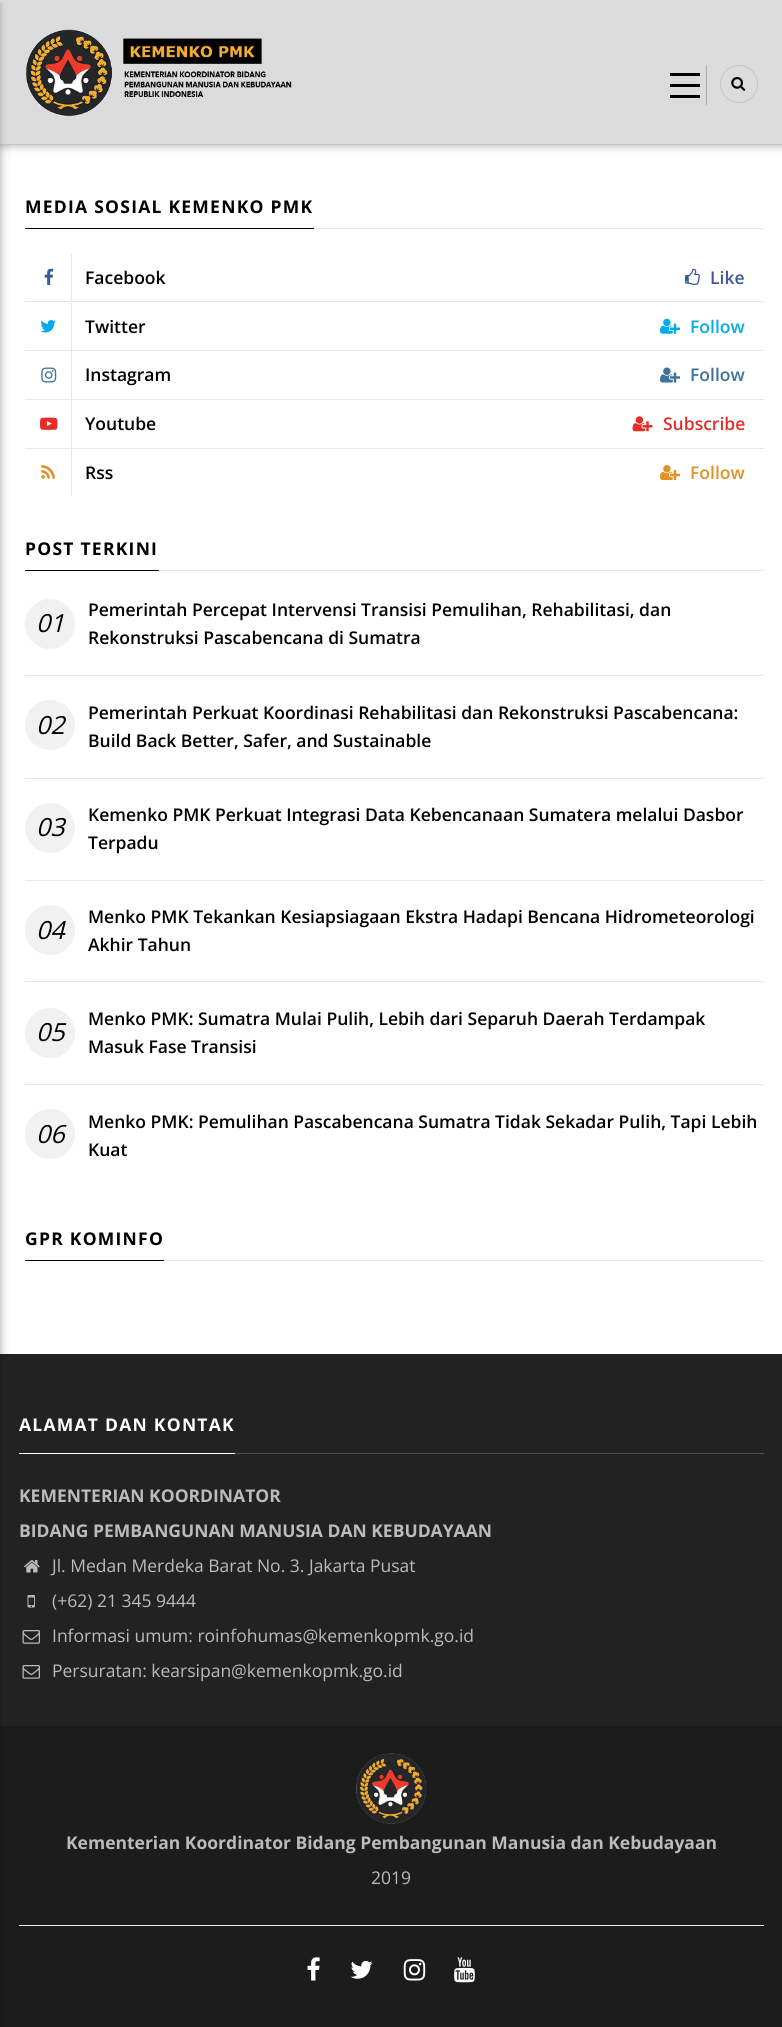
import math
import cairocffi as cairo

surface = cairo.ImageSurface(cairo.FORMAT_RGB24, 782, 2027)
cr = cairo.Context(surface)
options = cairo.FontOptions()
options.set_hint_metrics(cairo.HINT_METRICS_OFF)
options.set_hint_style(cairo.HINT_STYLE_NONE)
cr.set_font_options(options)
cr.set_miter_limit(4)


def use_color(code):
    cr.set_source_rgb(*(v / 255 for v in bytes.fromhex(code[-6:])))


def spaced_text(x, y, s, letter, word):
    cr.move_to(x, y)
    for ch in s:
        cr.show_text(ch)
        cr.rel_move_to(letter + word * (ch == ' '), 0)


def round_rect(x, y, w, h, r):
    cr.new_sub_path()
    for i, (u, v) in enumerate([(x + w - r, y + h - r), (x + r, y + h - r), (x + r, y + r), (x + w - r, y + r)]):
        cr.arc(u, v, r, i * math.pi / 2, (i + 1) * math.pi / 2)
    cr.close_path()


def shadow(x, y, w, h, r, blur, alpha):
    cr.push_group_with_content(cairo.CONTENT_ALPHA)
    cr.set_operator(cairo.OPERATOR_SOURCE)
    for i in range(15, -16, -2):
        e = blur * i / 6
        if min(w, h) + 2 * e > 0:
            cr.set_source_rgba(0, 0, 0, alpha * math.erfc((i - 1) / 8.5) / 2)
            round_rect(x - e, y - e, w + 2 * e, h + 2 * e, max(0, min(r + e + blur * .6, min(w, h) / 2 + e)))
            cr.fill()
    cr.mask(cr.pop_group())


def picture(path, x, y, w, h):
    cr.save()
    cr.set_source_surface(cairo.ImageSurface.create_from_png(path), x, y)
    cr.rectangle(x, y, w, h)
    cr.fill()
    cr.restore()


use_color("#ffffff")
cr.paint()
gradient = cairo.LinearGradient(1.2, -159, 13, -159)
gradient.add_color_stop_rgba(0, 0.941, 0.941, 0.941, 1)
gradient.add_color_stop_rgba(1, 1, 1, 1, 1)
cr.set_source(gradient)
cr.rectangle(1, 145, 10, 1209)
cr.fill()
use_color("#f0f0f0")
cr.rectangle(0, 145, 1, 1209)
cr.fill()
use_color("#000000")
shadow(0, 3, 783, 145, 0, 3, 0.2)
use_color("#dbdbdb")
cr.rectangle(0, 0, 782, 144)
cr.fill()
use_color("#c5c5c5")
cr.rectangle(0, 144, 782, 1)
cr.fill()
use_color("#222222")
cr.rectangle(0, 1354, 782, 372)
cr.fill()
use_color("#1c1c1c")
cr.rectangle(0, 1726, 782, 301)
cr.fill()
use_color("#000000")
shadow(-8, 4, 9, 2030, 0, 2.5, 0.2)
use_color("#aaaaaa")
cr.rectangle(706, 65, 1, 40)
cr.fill()
use_color("#000000")
cr.rectangle(670, 73, 30, 3)
cr.fill()
cr.rectangle(670, 84, 30, 3)
cr.fill()
cr.rectangle(670, 95, 30, 3)
cr.fill()
cr.arc(739, 84, 18.5, 0, 2 * math.pi)
use_color("#c5c5c5")
cr.set_line_width(1)
cr.stroke()
picture("img1.png", 731, 77, 15, 14)
picture("img2.png", 26, 29, 266, 88)
use_color("#e6e6e6")
cr.rectangle(314, 228, 450, 1)
cr.fill()
cr.select_font_face("Open Sans", cairo.FONT_SLANT_NORMAL, cairo.FONT_WEIGHT_BOLD)
cr.set_font_size(17.5)
use_color("#000000")
spaced_text(25, 213, "MEDIA SOSIAL KEMENKO PMK", 1.25, 0)
cr.rectangle(25, 228, 289, 1)
cr.fill()
use_color("#e6e6e6")
cr.rectangle(25, 301, 739, 1)
cr.fill()
cr.rectangle(71, 254, 1, 47)
cr.fill()
picture("img3.png", 44, 268, 10, 17)
cr.select_font_face("Open Sans SemiBold")
use_color("#000000")
cr.move_to(85, 284)
cr.show_text("Facebook")
picture("img4.png", 685, 268, 15, 17)
use_color("#3b5998")
cr.move_to(710, 284)
cr.show_text("Like")
use_color("#e6e6e6")
cr.rectangle(25, 350, 739, 1)
cr.fill()
cr.rectangle(71, 303, 1, 47)
cr.fill()
picture("img5.png", 40, 320, 16, 13)
use_color("#000000")
cr.move_to(85, 333)
cr.show_text("Twitter")
picture("img6.png", 660, 318, 20, 16)
use_color("#00aced")
cr.move_to(690, 333)
cr.show_text("Follow")
use_color("#e6e6e6")
cr.rectangle(25, 399, 739, 1)
cr.fill()
cr.rectangle(71, 351, 1, 48)
cr.fill()
picture("img7.png", 41, 367, 16, 16)
use_color("#000000")
cr.move_to(85, 381)
cr.show_text("Instagram")
picture("img8.png", 660, 367, 20, 16)
use_color("#3f729b")
cr.move_to(690, 381)
cr.show_text("Follow")
use_color("#e6e6e6")
cr.rectangle(25, 448, 739, 1)
cr.fill()
cr.rectangle(71, 400, 1, 48)
cr.fill()
picture("img9.png", 40, 417, 18, 13)
use_color("#000000")
cr.move_to(85, 430)
cr.show_text("Youtube")
picture("img10.png", 632, 416, 21, 16)
use_color("#e52d27")
cr.move_to(663, 430)
cr.show_text("Subscribe")
use_color("#e6e6e6")
cr.rectangle(71, 449, 1, 47)
cr.fill()
picture("img11.png", 41, 465, 14, 14)
use_color("#000000")
cr.move_to(85, 479)
cr.show_text("Rss")
picture("img12.png", 660, 465, 20, 15)
use_color("#e19126")
cr.move_to(690, 479)
cr.show_text("Follow")
use_color("#e6e6e6")
cr.rectangle(159, 570, 605, 1)
cr.fill()
cr.select_font_face("Open Sans", cairo.FONT_SLANT_NORMAL, cairo.FONT_WEIGHT_BOLD)
use_color("#000000")
spaced_text(25, 555, "POST TERKINI", 1.25, 0)
cr.rectangle(25, 570, 134, 1)
cr.fill()
use_color("#e6e6e6")
cr.rectangle(25, 675, 739, 1)
cr.fill()
use_color("#f1f1f1")
cr.arc(50, 624, 25, 0, 2 * math.pi)
cr.fill()
cr.select_font_face("Open Sans", cairo.FONT_SLANT_ITALIC)
cr.set_font_size(25)
use_color("#000000")
cr.move_to(36, 632)
cr.show_text("01")
cr.select_font_face("Open Sans SemiBold")
cr.set_font_size(17.5)
cr.move_to(88, 616)
cr.show_text("Pemerintah Percepat Intervensi Transisi Pemulihan, Rehabilitasi, dan")
cr.move_to(88, 644)
cr.show_text("Rekonstruksi Pascabencana di Sumatra")
use_color("#e6e6e6")
cr.rectangle(25, 778, 739, 1)
cr.fill()
use_color("#f1f1f1")
cr.arc(50, 725, 25, 0, 2 * math.pi)
cr.fill()
cr.select_font_face("Open Sans", cairo.FONT_SLANT_ITALIC)
cr.set_font_size(25)
use_color("#000000")
cr.move_to(36, 734)
cr.show_text("02")
cr.select_font_face("Open Sans SemiBold")
cr.set_font_size(17.5)
cr.move_to(88, 719)
cr.show_text("Pemerintah Perkuat Koordinasi Rehabilitasi dan Rekonstruksi Pascabencana:")
cr.move_to(88, 747)
cr.show_text("Build Back Better, Safer, and Sustainable")
use_color("#e6e6e6")
cr.rectangle(25, 880, 739, 1)
cr.fill()
use_color("#f1f1f1")
cr.arc(50, 828, 25, 0, 2 * math.pi)
cr.fill()
cr.select_font_face("Open Sans", cairo.FONT_SLANT_ITALIC)
cr.set_font_size(25)
use_color("#000000")
cr.move_to(36, 836)
cr.show_text("03")
cr.select_font_face("Open Sans SemiBold")
cr.set_font_size(17.5)
cr.move_to(88, 821)
cr.show_text("Kemenko PMK Perkuat Integrasi Data Kebencanaan Sumatera melalui Dasbor")
cr.move_to(88, 849)
cr.show_text("Terpadu")
use_color("#e6e6e6")
cr.rectangle(25, 981, 739, 1)
cr.fill()
use_color("#f1f1f1")
cr.arc(50, 930, 25, 0, 2 * math.pi)
cr.fill()
cr.select_font_face("Open Sans", cairo.FONT_SLANT_ITALIC)
cr.set_font_size(25)
use_color("#000000")
cr.move_to(36, 939)
cr.show_text("04")
cr.select_font_face("Open Sans SemiBold")
cr.set_font_size(17.5)
cr.move_to(88, 923)
cr.show_text("Menko PMK Tekankan Kesiapsiagaan Ekstra Hadapi Bencana Hidrometeorologi")
cr.move_to(88, 951)
cr.show_text("Akhir Tahun")
use_color("#e6e6e6")
cr.rectangle(25, 1084, 739, 1)
cr.fill()
use_color("#f1f1f1")
cr.arc(50, 1033, 25, 0, 2 * math.pi)
cr.fill()
cr.select_font_face("Open Sans", cairo.FONT_SLANT_ITALIC)
cr.set_font_size(25)
use_color("#000000")
cr.move_to(36, 1041)
cr.show_text("05")
cr.select_font_face("Open Sans SemiBold")
cr.set_font_size(17.5)
cr.move_to(88, 1025)
cr.show_text("Menko PMK: Sumatra Mulai Pulih, Lebih dari Separuh Daerah Terdampak")
cr.move_to(88, 1053)
cr.show_text("Masuk Fase Transisi")
use_color("#f1f1f1")
cr.new_path()
cr.arc(50, 1134, 25, 0, 2 * math.pi)
cr.fill()
cr.select_font_face("Open Sans", cairo.FONT_SLANT_ITALIC)
cr.set_font_size(25)
use_color("#000000")
cr.move_to(36, 1143)
cr.show_text("06")
cr.select_font_face("Open Sans SemiBold")
cr.set_font_size(17.5)
cr.move_to(88, 1128)
cr.show_text("Menko PMK: Pemulihan Pascabencana Sumatra Tidak Sekadar Pulih, Tapi Lebih")
cr.move_to(88, 1156)
cr.show_text("Kuat")
use_color("#e6e6e6")
cr.rectangle(164, 1260, 600, 1)
cr.fill()
cr.select_font_face("Open Sans", cairo.FONT_SLANT_NORMAL, cairo.FONT_WEIGHT_BOLD)
use_color("#000000")
spaced_text(25, 1245, "GPR KOMINFO", 1.25, 0)
cr.rectangle(25, 1260, 139, 1)
cr.fill()
use_color("#4e4e4e")
cr.rectangle(235, 1453, 529, 1)
cr.fill()
use_color("#ffffff")
spaced_text(19, 1431, "ALAMAT DAN KONTAK", 1.25, 0)
cr.rectangle(19, 1453, 216, 1)
cr.fill()
use_color("#bbbbbb")
cr.move_to(19, 1502)
cr.show_text("KEMENTERIAN KOORDINATOR")
cr.move_to(19, 1537)
cr.show_text("BIDANG PEMBANGUNAN MANUSIA DAN KEBUDAYAAN")
picture("img13.png", 24, 1560, 16, 13)
cr.select_font_face("Open Sans")
cr.move_to(52, 1572)
cr.show_text("Jl. Medan Merdeka Barat No. 3. Jakarta Pusat")
picture("img14.png", 27, 1595, 8, 13)
cr.move_to(52, 1607)
cr.show_text("(+62) 21 345 9444")
picture("img15.png", 22, 1630, 18, 14)
cr.move_to(52, 1642)
cr.show_text("Informasi umum: roinfohumas@kemenkopmk.go.id")
picture("img15.png", 22, 1665, 18, 14)
cr.move_to(52, 1677)
cr.show_text("Persuratan: kearsipan@kemenkopmk.go.id")
picture("img16.png", 356, 1753, 71, 71)
cr.select_font_face("Open Sans", cairo.FONT_SLANT_NORMAL, cairo.FONT_WEIGHT_BOLD)
cr.move_to(66, 1849)
cr.show_text("Kementerian Koordinator Bidang Pembangunan Manusia dan Kebudayaan")
cr.select_font_face("Open Sans")
cr.move_to(371, 1884)
cr.show_text("2019")
use_color("#eeeeee")
cr.rectangle(19, 1925, 745, 1)
cr.fill()
picture("img17.png", 307, 1957, 13, 24)
picture("img18.png", 350, 1960, 23, 19)
picture("img19.png", 403, 1959, 23, 22)
picture("img20.png", 454, 1957, 21, 26)
surface.write_to_png("result.png")
